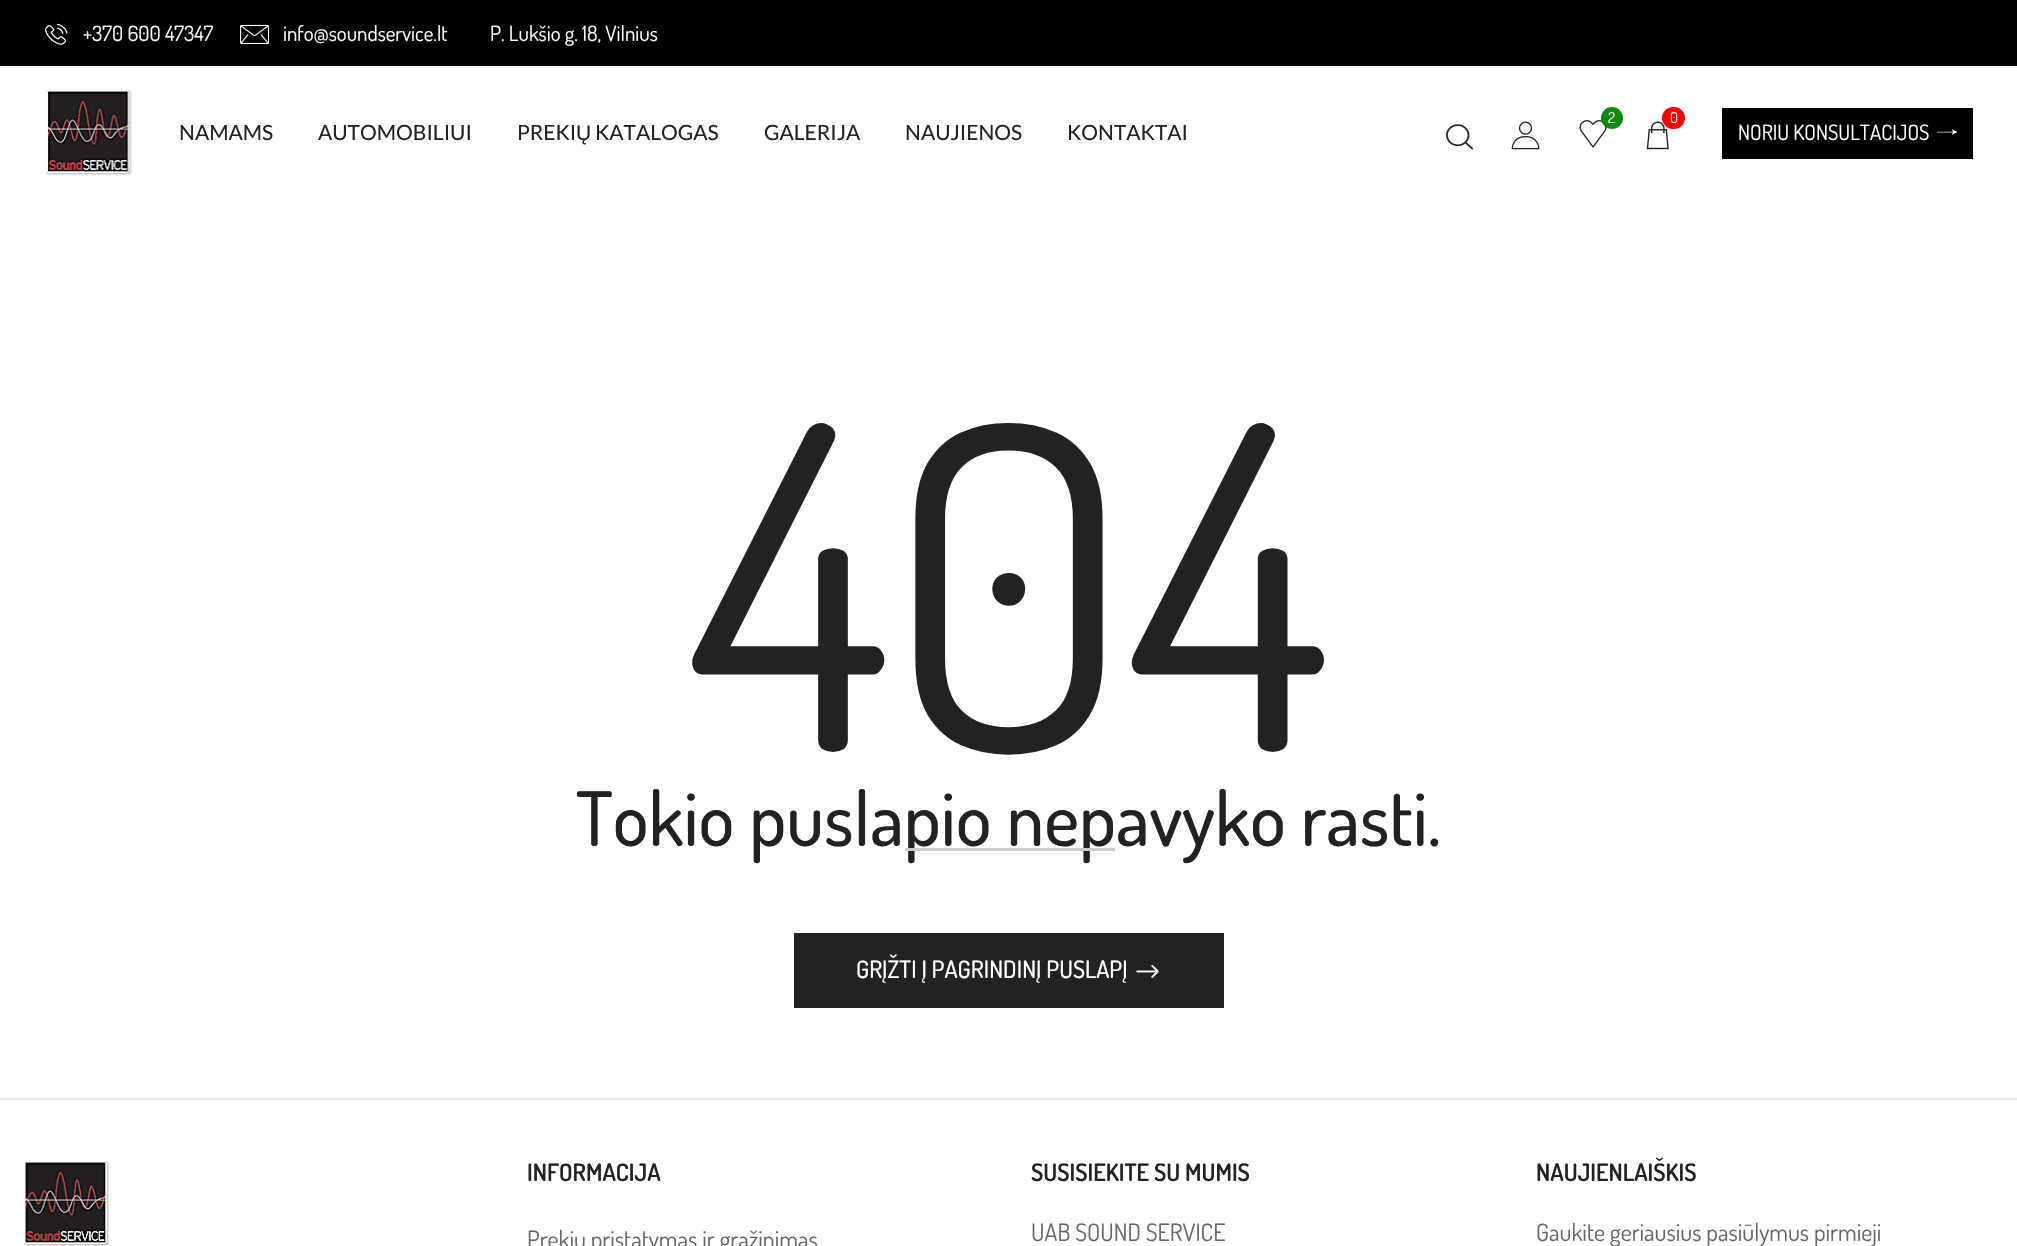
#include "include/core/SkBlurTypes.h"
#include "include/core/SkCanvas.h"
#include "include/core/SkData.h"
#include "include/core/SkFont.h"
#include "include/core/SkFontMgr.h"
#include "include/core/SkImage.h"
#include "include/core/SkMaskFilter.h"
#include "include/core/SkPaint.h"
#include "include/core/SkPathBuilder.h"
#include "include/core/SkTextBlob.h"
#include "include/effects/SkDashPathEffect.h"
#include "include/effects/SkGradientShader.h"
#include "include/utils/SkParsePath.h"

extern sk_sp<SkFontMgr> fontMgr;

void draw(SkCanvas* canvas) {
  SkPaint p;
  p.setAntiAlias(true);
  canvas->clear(SK_ColorWHITE);
  p.setColor(SK_ColorBLACK);
  canvas->drawRect(SkRect::MakeLTRB(0, 0, 2017, 66), p);
  canvas->drawImageRect(SkImages::DeferredFromEncodedData(SkData::MakeFromFileName("images/1.png")), SkRect::MakeLTRB(45, 23, 68, 45), SkSamplingOptions());
  canvas->drawImageRect(SkImages::DeferredFromEncodedData(SkData::MakeFromFileName("images/2.png")), SkRect::MakeLTRB(240, 24, 270, 44), SkSamplingOptions());
  canvas->drawImageRect(SkImages::DeferredFromEncodedData(SkData::MakeFromFileName("images/3.png")), SkRect::MakeLTRB(46, 90, 132, 176), SkSamplingOptions());
  canvas->drawImageRect(SkImages::DeferredFromEncodedData(SkData::MakeFromFileName("images/4.png")), SkRect::MakeLTRB(1579, 120, 1607, 148), SkSamplingOptions());
  p.setColor(SkColorSetRGB(14, 139, 14));
  canvas->drawCircle(1612, 118, 11, p);
  canvas->drawImageRect(SkImages::DeferredFromEncodedData(SkData::MakeFromFileName("images/5.png")), SkRect::MakeLTRB(1646, 121, 1669, 150), SkSamplingOptions());
  p.setColor(SkColorSetRGB(255, 0, 0));
  canvas->drawRoundRect(SkRect::MakeLTRB(1662, 107, 1685, 129), 11, 11, p);
  canvas->drawImageRect(SkImages::DeferredFromEncodedData(SkData::MakeFromFileName("images/6.png")), SkRect::MakeLTRB(1446, 124, 1473, 150), SkSamplingOptions());
  canvas->drawImageRect(SkImages::DeferredFromEncodedData(SkData::MakeFromFileName("images/7.png")), SkRect::MakeLTRB(1511, 121, 1540, 150), SkSamplingOptions());
  p.setColor(SK_ColorBLACK);
  canvas->drawRect(SkRect::MakeLTRB(1722, 108, 1973, 159), p);
  canvas->drawImageRect(SkImages::DeferredFromEncodedData(SkData::MakeFromFileName("images/8.png")), SkRect::MakeLTRB(1937, 129, 1958, 135), SkSamplingOptions());
  p.setColor(SkColorSetRGB(34, 34, 34));
  canvas->drawRect(SkRect::MakeLTRB(794, 933, 1224, 1008), p);
  canvas->drawImageRect(SkImages::DeferredFromEncodedData(SkData::MakeFromFileName("images/9.png")), SkRect::MakeLTRB(1136, 964, 1159, 978), SkSamplingOptions());
  p.setColor(SkColorSetRGB(233, 233, 233));
  canvas->drawRect(SkRect::MakeLTRB(0, 1098, 2017, 1100), p);
  canvas->drawImageRect(SkImages::DeferredFromEncodedData(SkData::MakeFromFileName("images/10.png")), SkRect::MakeLTRB(24, 1161, 110, 1246), SkSamplingOptions());
  SkFont font1(fontMgr->matchFamilyStyle("Dosis", SkFontStyle::Normal()), 21);
  font1.setSubpixel(true);
  p.setColor(SK_ColorWHITE);
  canvas->drawString("+370 600 47347", 83, 41, font1, p);
  canvas->drawString("info@soundservice.lt", 283, 41, font1, p);
  canvas->drawString("P. Lukšio g. 18, Vilnius", 490, 41, font1, p);
  SkFont font2(fontMgr->matchFamilyStyle("Lato", SkFontStyle::Normal()), 21);
  font2.setSubpixel(true);
  p.setColor(SkColorSetRGB(34, 34, 34));
  canvas->drawString("NAMAMS", 179, 140, font2, p);
  canvas->drawString("AUTOMOBILIUI", 318, 140, font2, p);
  canvas->drawString("PREKI", 517, 140, font2, p);
  SkFont font3(fontMgr->matchFamilyStyle("Liberation Sans", SkFontStyle::Normal()), 21);
  font3.setSubpixel(true);
  canvas->drawString("Ų", 576, 140, font3, p);
  canvas->drawString("KATALOGAS", 595, 140, font2, p);
  canvas->drawString("GALERIJA", 764, 140, font2, p);
  canvas->drawString("NAUJIENOS", 905, 140, font2, p);
  canvas->drawString("KONTAKTAI", 1067, 140, font2, p);
  SkFont font4(fontMgr->matchFamilyStyle("Dosis", SkFontStyle::Normal()), 15);
  font4.setSubpixel(true);
  p.setColor(SK_ColorWHITE);
  canvas->drawString("2", 1608, 123, font4, p);
  canvas->drawString("0", 1670, 123, font4, p);
  canvas->drawString("NORIU KONSULTACIJOS", 1738, 140, font1, p);
  SkFont font5(fontMgr->matchFamilyStyle("Dosis", SkFontStyle::Normal()), 450);
  font5.setSubpixel(true);
  p.setColor(SkColorSetRGB(34, 34, 34));
  canvas->drawString("404", 689, 752, font5, p);
  SkFont font6(fontMgr->matchFamilyStyle("Dosis", SkFontStyle(500, SkFontStyle::kNormal_Width, SkFontStyle::kUpright_Slant)), 75);
  font6.setSubpixel(true);
  canvas->drawString("Tokio puslapio nepavyko rasti.", 576, 846, font6, p);
  p.setColor(SkColorSetRGB(204, 204, 204));
  canvas->drawRect(SkRect::MakeLTRB(905, 848, 1115, 851), p);
  SkFont font7(fontMgr->matchFamilyStyle("Dosis", SkFontStyle(500, SkFontStyle::kNormal_Width, SkFontStyle::kUpright_Slant)), 24);
  font7.setSubpixel(true);
  p.setColor(SK_ColorWHITE);
  canvas->drawString("GRĮŽTI Į PAGRINDINĮ PUSLAPĮ", 856, 978, font7, p);
  SkFont font8(fontMgr->matchFamilyStyle("Dosis", SkFontStyle(600, SkFontStyle::kNormal_Width, SkFontStyle::kUpright_Slant)), 24);
  font8.setSubpixel(true);
  p.setColor(SkColorSetRGB(34, 34, 34));
  canvas->drawString("INFORMACIJA", 527, 1181, font8, p);
  SkFont font9(fontMgr->matchFamilyStyle("Dosis", SkFontStyle::Normal()), 24);
  font9.setSubpixel(true);
  p.setColor(SkColorSetRGB(102, 102, 102));
  canvas->drawString("Prekių pristatymas ir grąžinimas", 527, 1248, font9, p);
  p.setColor(SkColorSetRGB(34, 34, 34));
  canvas->drawString("SUSISIEKITE SU MUMIS", 1031, 1181, font8, p);
  p.setColor(SkColorSetRGB(102, 102, 102));
  canvas->drawString("UAB SOUND SERVICE", 1031, 1241, font9, p);
  p.setColor(SkColorSetRGB(34, 34, 34));
  canvas->drawString("NAUJIENLAIŠKIS", 1536, 1181, font8, p);
  p.setColor(SkColorSetRGB(102, 102, 102));
  canvas->drawString("Gaukite geriausius pasiūlymus pirmieji", 1536, 1241, font9, p);
}
